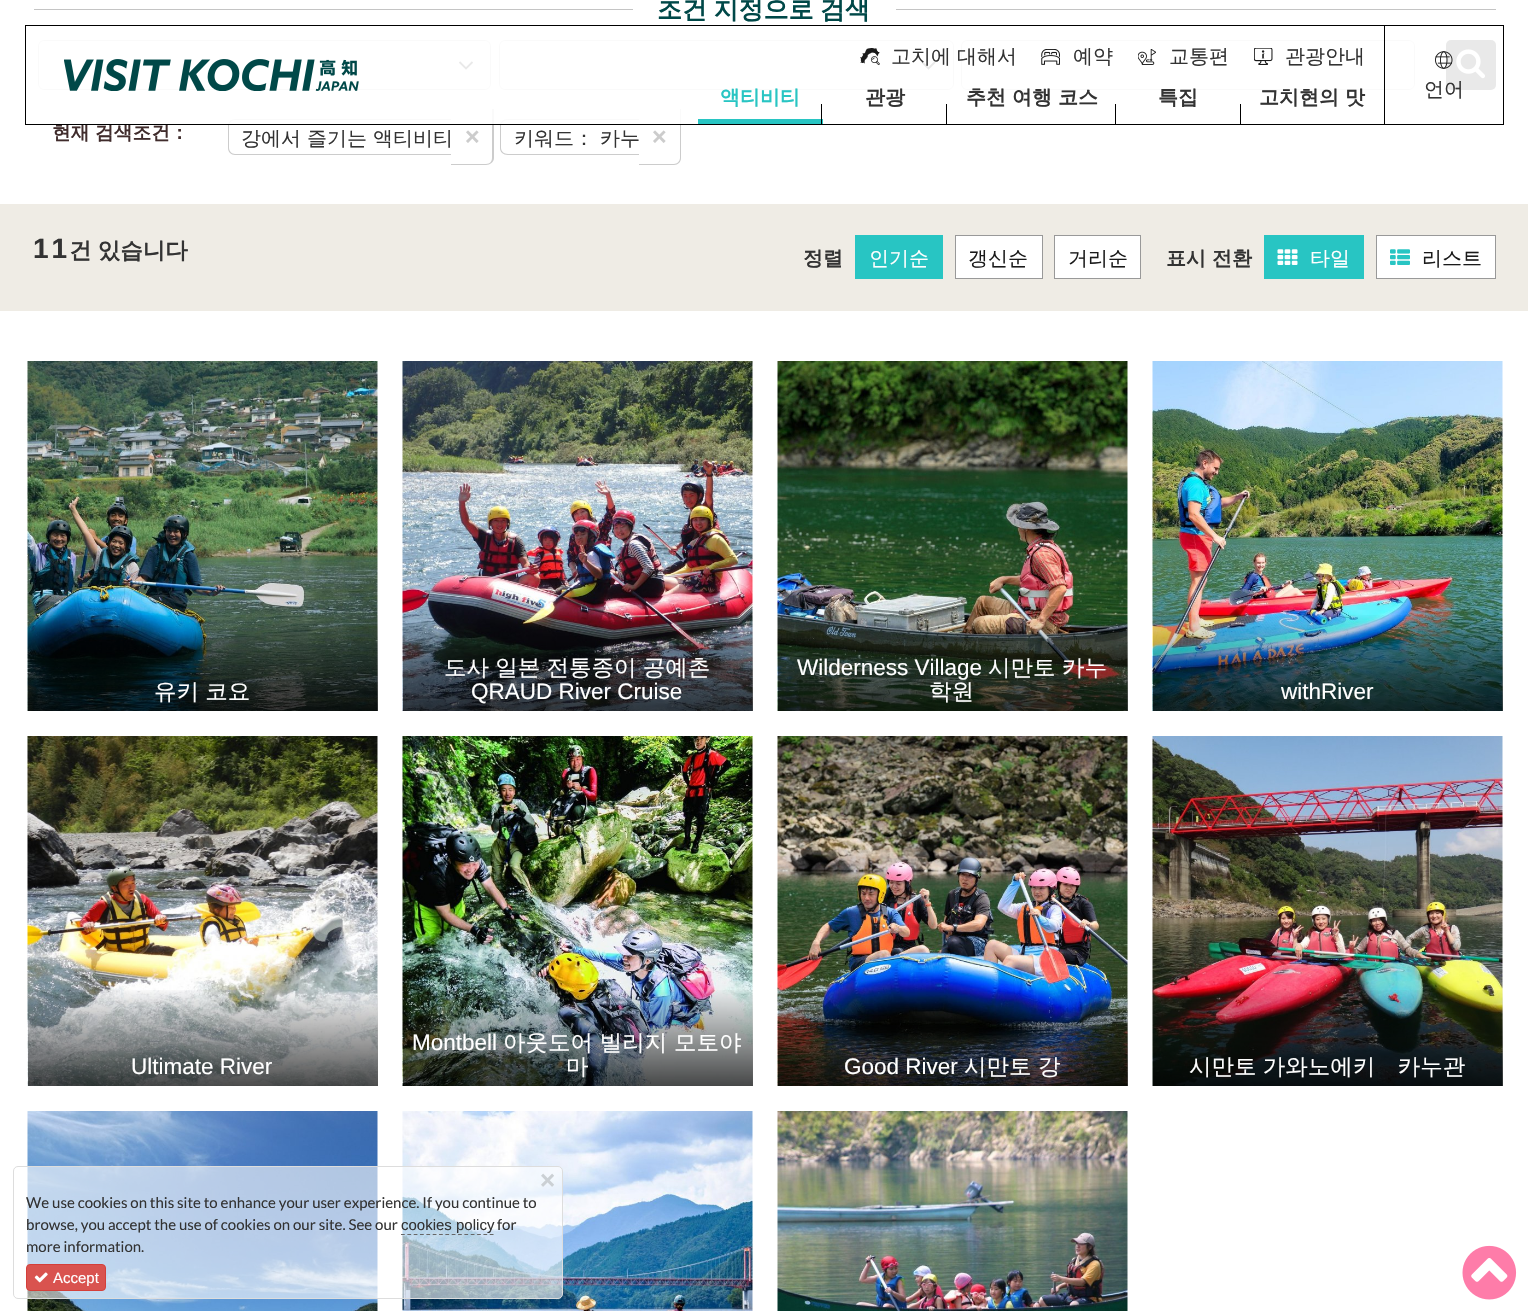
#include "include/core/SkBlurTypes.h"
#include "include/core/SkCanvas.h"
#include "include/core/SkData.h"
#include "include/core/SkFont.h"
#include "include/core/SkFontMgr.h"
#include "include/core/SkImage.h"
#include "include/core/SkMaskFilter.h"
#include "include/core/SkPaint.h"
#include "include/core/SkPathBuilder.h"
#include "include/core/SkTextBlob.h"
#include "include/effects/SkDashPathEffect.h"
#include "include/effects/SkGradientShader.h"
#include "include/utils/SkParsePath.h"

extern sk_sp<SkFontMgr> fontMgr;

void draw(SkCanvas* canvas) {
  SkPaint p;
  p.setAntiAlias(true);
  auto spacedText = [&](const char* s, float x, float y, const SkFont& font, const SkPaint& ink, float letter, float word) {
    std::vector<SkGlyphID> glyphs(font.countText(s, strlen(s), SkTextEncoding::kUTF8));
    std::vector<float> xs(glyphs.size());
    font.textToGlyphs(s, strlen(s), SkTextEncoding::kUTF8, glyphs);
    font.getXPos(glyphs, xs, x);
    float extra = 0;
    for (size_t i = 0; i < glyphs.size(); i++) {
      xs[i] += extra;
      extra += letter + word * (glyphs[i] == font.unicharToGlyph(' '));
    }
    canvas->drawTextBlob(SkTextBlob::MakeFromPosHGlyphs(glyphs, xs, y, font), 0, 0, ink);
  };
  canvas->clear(SK_ColorWHITE);
  p.setColor(SkColorSetRGB(196, 196, 196));
  canvas->drawRect(SkRect::MakeLTRB(34, 9, 1496, 10), p);
  p.setColor(SK_ColorWHITE);
  canvas->drawRect(SkRect::MakeLTRB(633, 9, 896, 10), p);
  p.setStyle(SkPaint::kStroke_Style);
  p.setStrokeWidth(1);
  p.setColor(SkColorSetRGB(204, 204, 204));
  canvas->drawRoundRect(SkRect::MakeLTRB(38.5f, 40.5f, 490.5f, 89.5f), 5.5f, 5.5f, p);
  p.setStrokeWidth(1.9f);
  p.setColor(SkColorSetRGB(26, 26, 26));
  canvas->drawPath(SkPathBuilder().moveTo(472.5f, 62).lineTo(466, 68.5f).lineTo(459.5f, 62).detach(), p);
  p.setStrokeWidth(1);
  p.setColor(SkColorSetRGB(204, 204, 204));
  canvas->drawRoundRect(SkRect::MakeLTRB(499.5f, 40.5f, 953.5f, 89.5f), 5.5f, 5.5f, p);
  p.setStrokeWidth(1.9f);
  p.setColor(SkColorSetRGB(26, 26, 26));
  canvas->drawPath(SkPathBuilder().moveTo(935, 62).lineTo(928.5f, 68.5f).lineTo(922, 62).detach(), p);
  p.setStrokeWidth(1);
  p.setColor(SkColorSetRGB(204, 204, 204));
  canvas->drawRoundRect(SkRect::MakeLTRB(961.5f, 40.5f, 1414.5f, 89.5f), 5.5f, 5.5f, p);
  p.setStyle(SkPaint::kFill_Style);
  p.setColor(SkColorSetRGB(26, 26, 26));
  canvas->drawRoundRect(SkRect::MakeLTRB(1446, 40, 1496, 90), 5, 5, p);
  canvas->drawImageRect(SkImages::DeferredFromEncodedData(SkData::MakeFromFileName("images/1.png")), SkRect::MakeLTRB(1456, 49, 1485, 79), SkSamplingOptions());
  p.setColor(SkColorSetRGB(204, 204, 204));
  canvas->drawPath(SkPathBuilder(SkPathFillType::kEvenOdd).moveTo(235, 119).lineTo(451, 119).lineTo(451, 155).lineTo(235, 155).cubicTo(231, 155, 228, 152, 228, 148).lineTo(228, 126).cubicTo(228, 122, 231, 119, 235, 119).close().moveTo(235, 120).lineTo(451, 120).lineTo(451, 154).lineTo(235, 154).cubicTo(232, 154, 229, 151, 229, 148).lineTo(229, 126).cubicTo(229, 123, 232, 120, 235, 120).close().detach(), p);
  canvas->save();
  canvas->clipRect(SkRect::MakeLTRB(40, 109, 1490, 204));
  canvas->drawPath(SkPathBuilder(SkPathFillType::kEvenOdd).moveTo(451, 100).lineTo(486, 100).cubicTo(490, 100, 494, 103, 494, 108).lineTo(494, 158).cubicTo(494, 162, 490, 165, 486, 165).lineTo(451, 165).close().moveTo(451, 101).lineTo(486, 101).cubicTo(490, 101, 492, 104, 492, 108).lineTo(492, 158).cubicTo(492, 161, 490, 164, 486, 164).lineTo(451, 164).close().detach(), p);
  canvas->restore();
  canvas->drawPath(SkPathBuilder(SkPathFillType::kEvenOdd).moveTo(508, 119).lineTo(639, 119).lineTo(639, 155).lineTo(508, 155).cubicTo(503, 155, 500, 152, 500, 148).lineTo(500, 126).cubicTo(500, 122, 503, 119, 508, 119).close().moveTo(508, 120).lineTo(639, 120).lineTo(639, 154).lineTo(508, 154).cubicTo(504, 154, 501, 151, 501, 148).lineTo(501, 126).cubicTo(501, 123, 504, 120, 508, 120).close().detach(), p);
  canvas->save();
  canvas->clipRect(SkRect::MakeLTRB(40, 109, 1490, 204));
  canvas->drawPath(SkPathBuilder(SkPathFillType::kEvenOdd).moveTo(639, 100).lineTo(674, 100).cubicTo(678, 100, 681, 103, 681, 108).lineTo(681, 158).cubicTo(681, 162, 678, 165, 674, 165).lineTo(639, 165).close().moveTo(639, 101).lineTo(674, 101).cubicTo(677, 101, 680, 104, 680, 108).lineTo(680, 158).cubicTo(680, 161, 677, 164, 674, 164).lineTo(639, 164).close().detach(), p);
  canvas->restore();
  p.setColor(SkColorSetRGB(239, 236, 229));
  canvas->drawRect(SkRect::MakeLTRB(0, 204, 1528, 311), p);
  p.setColor(SkColorSetRGB(40, 197, 195));
  canvas->drawRect(SkRect::MakeLTRB(855, 235, 943, 279), p);
  p.setColor(SK_ColorWHITE);
  canvas->drawRect(SkRect::MakeLTRB(955.5f, 235.5f, 1042.5f, 278.5f), p);
  p.setStyle(SkPaint::kStroke_Style);
  p.setColor(SkColorSetRGB(153, 153, 153));
  canvas->drawRect(SkRect::MakeLTRB(955.5f, 235.5f, 1042.5f, 278.5f), p);
  p.setStyle(SkPaint::kFill_Style);
  p.setColor(SK_ColorWHITE);
  canvas->drawRect(SkRect::MakeLTRB(1054.5f, 235.5f, 1140.5f, 278.5f), p);
  p.setStyle(SkPaint::kStroke_Style);
  p.setColor(SkColorSetRGB(153, 153, 153));
  canvas->drawRect(SkRect::MakeLTRB(1054.5f, 235.5f, 1140.5f, 278.5f), p);
  p.setStyle(SkPaint::kFill_Style);
  p.setColor(SkColorSetRGB(40, 197, 195));
  canvas->drawRect(SkRect::MakeLTRB(1264, 235, 1364, 279), p);
  canvas->drawImageRect(SkImages::DeferredFromEncodedData(SkData::MakeFromFileName("images/2.png")), SkRect::MakeLTRB(1277, 249, 1298, 265), SkSamplingOptions());
  p.setColor(SK_ColorWHITE);
  canvas->drawRect(SkRect::MakeLTRB(1376.5f, 235.5f, 1495.5f, 278.5f), p);
  p.setStyle(SkPaint::kStroke_Style);
  p.setColor(SkColorSetRGB(153, 153, 153));
  canvas->drawRect(SkRect::MakeLTRB(1376.5f, 235.5f, 1495.5f, 278.5f), p);
  canvas->drawImageRect(SkImages::DeferredFromEncodedData(SkData::MakeFromFileName("images/3.png")), SkRect::MakeLTRB(1390, 249, 1410, 265), SkSamplingOptions());
  canvas->drawImageRect(SkImages::DeferredFromEncodedData(SkData::MakeFromFileName("images/4.png")), SkRect::MakeLTRB(27, 361, 378, 711), SkSamplingOptions());
  p.setStyle(SkPaint::kFill_Style);
  {
    const SkColor colors[] = {SkColorSetARGB(0, 0, 0, 0), SkColorSetARGB(0, 0, 0, 0), SkColorSetARGB(179, 0, 0, 0)};
    const float stops[] = {0, 0.01f, 1};
    const SkPoint ends[] = {{203, 611}, {203, 711}};
    p.setShader(SkGradientShader::MakeLinear(ends, colors, stops, 3, SkTileMode::kClamp));
    p.setAlpha(255);
  }
  canvas->drawRect(SkRect::MakeLTRB(28, 615, 378, 711), p);
  canvas->drawImageRect(SkImages::DeferredFromEncodedData(SkData::MakeFromFileName("images/5.png")), SkRect::MakeLTRB(402, 361, 753, 711), SkSamplingOptions());
  {
    const SkColor colors[] = {SkColorSetARGB(0, 0, 0, 0), SkColorSetARGB(0, 0, 0, 0), SkColorSetARGB(179, 0, 0, 0)};
    const float stops[] = {0, 0.01f, 1};
    const SkPoint ends[] = {{578, 611}, {578, 711}};
    p.setShader(SkGradientShader::MakeLinear(ends, colors, stops, 3, SkTileMode::kClamp));
    p.setAlpha(255);
  }
  canvas->drawRect(SkRect::MakeLTRB(403, 615, 753, 711), p);
  canvas->drawImageRect(SkImages::DeferredFromEncodedData(SkData::MakeFromFileName("images/6.png")), SkRect::MakeLTRB(777, 361, 1128, 711), SkSamplingOptions());
  {
    const SkColor colors[] = {SkColorSetARGB(0, 0, 0, 0), SkColorSetARGB(0, 0, 0, 0), SkColorSetARGB(179, 0, 0, 0)};
    const float stops[] = {0, 0.01f, 1};
    const SkPoint ends[] = {{953, 611}, {953, 711}};
    p.setShader(SkGradientShader::MakeLinear(ends, colors, stops, 3, SkTileMode::kClamp));
    p.setAlpha(255);
  }
  canvas->drawRect(SkRect::MakeLTRB(778, 615, 1128, 711), p);
  canvas->drawImageRect(SkImages::DeferredFromEncodedData(SkData::MakeFromFileName("images/7.png")), SkRect::MakeLTRB(1152, 361, 1503, 711), SkSamplingOptions());
  {
    const SkColor colors[] = {SkColorSetARGB(0, 0, 0, 0), SkColorSetARGB(0, 0, 0, 0), SkColorSetARGB(179, 0, 0, 0)};
    const float stops[] = {0, 0.01f, 1};
    const SkPoint ends[] = {{1328, 611}, {1328, 711}};
    p.setShader(SkGradientShader::MakeLinear(ends, colors, stops, 3, SkTileMode::kClamp));
    p.setAlpha(255);
  }
  canvas->drawRect(SkRect::MakeLTRB(1153, 615, 1503, 711), p);
  canvas->drawImageRect(SkImages::DeferredFromEncodedData(SkData::MakeFromFileName("images/8.png")), SkRect::MakeLTRB(27, 736, 378, 1086), SkSamplingOptions());
  {
    const SkColor colors[] = {SkColorSetARGB(0, 0, 0, 0), SkColorSetARGB(0, 0, 0, 0), SkColorSetARGB(179, 0, 0, 0)};
    const float stops[] = {0, 0.01f, 1};
    const SkPoint ends[] = {{203, 986}, {203, 1086}};
    p.setShader(SkGradientShader::MakeLinear(ends, colors, stops, 3, SkTileMode::kClamp));
    p.setAlpha(255);
  }
  canvas->drawRect(SkRect::MakeLTRB(28, 990, 378, 1086), p);
  canvas->drawImageRect(SkImages::DeferredFromEncodedData(SkData::MakeFromFileName("images/9.png")), SkRect::MakeLTRB(402, 736, 753, 1086), SkSamplingOptions());
  {
    const SkColor colors[] = {SkColorSetARGB(0, 0, 0, 0), SkColorSetARGB(0, 0, 0, 0), SkColorSetARGB(179, 0, 0, 0)};
    const float stops[] = {0, 0.01f, 1};
    const SkPoint ends[] = {{578, 986}, {578, 1086}};
    p.setShader(SkGradientShader::MakeLinear(ends, colors, stops, 3, SkTileMode::kClamp));
    p.setAlpha(255);
  }
  canvas->drawRect(SkRect::MakeLTRB(403, 990, 753, 1086), p);
  canvas->drawImageRect(SkImages::DeferredFromEncodedData(SkData::MakeFromFileName("images/10.png")), SkRect::MakeLTRB(777, 736, 1128, 1086), SkSamplingOptions());
  {
    const SkColor colors[] = {SkColorSetARGB(0, 0, 0, 0), SkColorSetARGB(0, 0, 0, 0), SkColorSetARGB(179, 0, 0, 0)};
    const float stops[] = {0, 0.01f, 1};
    const SkPoint ends[] = {{953, 986}, {953, 1086}};
    p.setShader(SkGradientShader::MakeLinear(ends, colors, stops, 3, SkTileMode::kClamp));
    p.setAlpha(255);
  }
  canvas->drawRect(SkRect::MakeLTRB(778, 990, 1128, 1086), p);
  canvas->drawImageRect(SkImages::DeferredFromEncodedData(SkData::MakeFromFileName("images/11.png")), SkRect::MakeLTRB(1152, 736, 1503, 1086), SkSamplingOptions());
  {
    const SkColor colors[] = {SkColorSetARGB(0, 0, 0, 0), SkColorSetARGB(0, 0, 0, 0), SkColorSetARGB(179, 0, 0, 0)};
    const float stops[] = {0, 0.01f, 1};
    const SkPoint ends[] = {{1328, 986}, {1328, 1086}};
    p.setShader(SkGradientShader::MakeLinear(ends, colors, stops, 3, SkTileMode::kClamp));
    p.setAlpha(255);
  }
  canvas->drawRect(SkRect::MakeLTRB(1153, 990, 1503, 1086), p);
  canvas->drawImageRect(SkImages::DeferredFromEncodedData(SkData::MakeFromFileName("images/12.png")), SkRect::MakeLTRB(27, 1111, 378, 1311), SkSamplingOptions());
  canvas->drawImageRect(SkImages::DeferredFromEncodedData(SkData::MakeFromFileName("images/13.png")), SkRect::MakeLTRB(402, 1111, 753, 1311), SkSamplingOptions());
  canvas->drawImageRect(SkImages::DeferredFromEncodedData(SkData::MakeFromFileName("images/14.png")), SkRect::MakeLTRB(777, 1111, 1128, 1311), SkSamplingOptions());
  p.setShader(nullptr);
  p.setColor(SkColorSetARGB(230, 255, 255, 255));
  canvas->drawRect(SkRect::MakeLTRB(38, 40, 1496, 124), p);
  p.setColor(SkColorSetARGB(153, 255, 255, 255));
  canvas->drawRoundRect(SkRect::MakeLTRB(13.5f, 1166.5f, 562.5f, 1298.5f), 4.5f, 4.5f, p);
  p.setStyle(SkPaint::kStroke_Style);
  p.setColor(SkColorSetRGB(221, 221, 221));
  canvas->drawRoundRect(SkRect::MakeLTRB(13.5f, 1166.5f, 562.5f, 1298.5f), 4.5f, 4.5f, p);
  p.setStrokeWidth(1.2f);
  p.setColor(SkColorSetRGB(102, 102, 102));
  p.setPathEffect(SkDashPathEffect::Make({{3.75f, 2.59f}}, 0));
  canvas->drawPath(SkPathBuilder().moveTo(401, 1234.5f).lineTo(494, 1234.5f).detach(), p);
  p.setPathEffect(nullptr);
  p.setStyle(SkPaint::kFill_Style);
  p.setColor(SkColorSetRGB(217, 83, 79));
  canvas->drawRoundRect(SkRect::MakeLTRB(26.5f, 1264.5f, 105.5f, 1290.5f), 3.5f, 3.5f, p);
  p.setStyle(SkPaint::kStroke_Style);
  p.setStrokeWidth(1);
  p.setColor(SkColorSetRGB(212, 63, 58));
  canvas->drawRoundRect(SkRect::MakeLTRB(26.5f, 1264.5f, 105.5f, 1290.5f), 3.5f, 3.5f, p);
  canvas->drawImageRect(SkImages::DeferredFromEncodedData(SkData::MakeFromFileName("images/21.png")), SkRect::MakeLTRB(34, 1272, 48, 1283), SkSamplingOptions());
  canvas->drawImageRect(SkImages::DeferredFromEncodedData(SkData::MakeFromFileName("images/22.png")), SkRect::MakeLTRB(1462, 1245, 1517, 1300), SkSamplingOptions());
  SkFont font1(fontMgr->matchFamilyStyle("WenQuanYi Zen Hei", SkFontStyle::Bold()), 25);
  font1.setSubpixel(true);
  p.setStyle(SkPaint::kFill_Style);
  p.setColor(SkColorSetRGB(0, 72, 72));
  spacedText("조건 지정으로 검색", 657, 18, font1, p, 0, -1);
  SkFont font2(fontMgr->matchFamilyStyle("WenQuanYi Zen Hei", SkFontStyle::Bold()), 18.75f);
  font2.setSubpixel(true);
  p.setColor(SkColorSetRGB(64, 44, 44));
  canvas->drawString("현재 검색조건：", 52, 139, font2, p);
  SkFont font3(fontMgr->matchFamilyStyle("WenQuanYi Zen Hei", SkFontStyle(500, SkFontStyle::kNormal_Width, SkFontStyle::kUpright_Slant)), 20);
  font3.setSubpixel(true);
  p.setColor(SkColorSetRGB(51, 51, 51));
  canvas->drawString("강에서 즐기는 액티비티", 241, 145, font3, p);
  SkFont font4(fontMgr->matchFamilyStyle("Liberation Sans", SkFontStyle::Bold()), 25);
  font4.setSubpixel(true);
  p.setColor(SkColorSetRGB(204, 204, 204));
  canvas->drawString("×", 465, 145, font4, p);
  p.setColor(SkColorSetRGB(51, 51, 51));
  canvas->drawString("키워드： 카누", 514, 145, font3, p);
  p.setColor(SkColorSetRGB(204, 204, 204));
  canvas->drawString("×", 652, 145, font4, p);
  SkFont font5(fontMgr->matchFamilyStyle("Liberation Sans", SkFontStyle::Bold()), 28);
  font5.setSubpixel(true);
  p.setColor(SkColorSetRGB(51, 51, 51));
  spacedText("11", 33, 258, font5, p, 3, 0);
  SkFont font6(fontMgr->matchFamilyStyle("WenQuanYi Zen Hei", SkFontStyle::Bold()), 22.5f);
  font6.setSubpixel(true);
  spacedText("건 있습니다", 69, 258, font6, p, 0, -0.5f);
  SkFont font7(fontMgr->matchFamilyStyle("WenQuanYi Zen Hei", SkFontStyle::Bold()), 20);
  font7.setSubpixel(true);
  canvas->drawString("정렬", 803, 265, font7, p);
  p.setColor(SK_ColorWHITE);
  canvas->drawString("인기순", 869, 265, font3, p);
  p.setColor(SkColorSetRGB(26, 26, 26));
  canvas->drawString("갱신순", 968, 265, font3, p);
  canvas->drawString("거리순", 1068, 265, font3, p);
  p.setColor(SkColorSetRGB(51, 51, 51));
  canvas->drawString("표시 전환", 1166, 265, font7, p);
  p.setColor(SK_ColorWHITE);
  canvas->drawString("타일", 1310, 265, font3, p);
  p.setColor(SkColorSetRGB(26, 26, 26));
  canvas->drawString("리스트", 1422, 265, font3, p);
  SkFont font8(fontMgr->matchFamilyStyle("WenQuanYi Zen Hei", SkFontStyle(500, SkFontStyle::kNormal_Width, SkFontStyle::kUpright_Slant)), 22.5f);
  font8.setSubpixel(true);
  p.setColor(SK_ColorWHITE);
  spacedText("유키 코요", 154, 699, font8, p, 0, -0.5f);
  spacedText("도사 일본 전통종이 공예촌", 444, 675, font8, p, 0, -0.5f);
  SkFont font9(fontMgr->matchFamilyStyle("Liberation Sans", SkFontStyle::Normal()), 22.5f);
  font9.setSubpixel(true);
  canvas->drawString("QRAUD River Cruise", 471, 699, font9, p);
  canvas->drawString("Wilderness Village", 797, 675, font9, p);
  canvas->drawString("시만토", 988, 675, font8, p);
  canvas->drawString("카누", 1062, 675, font8, p);
  canvas->drawString("학원", 929, 699, font8, p);
  canvas->drawString("withRiver", 1281, 699, font9, p);
  canvas->drawString("Ultimate River", 131, 1074, font9, p);
  canvas->drawString("Montbell", 412, 1050, font9, p);
  canvas->drawString("아웃도어 빌리지 모토야", 503, 1050, font8, p);
  canvas->drawString("마", 566, 1074, font8, p);
  canvas->drawString("Good River", 844, 1074, font9, p);
  canvas->drawString("시만토", 964, 1074, font8, p);
  canvas->drawString("강", 1038, 1074, font8, p);
  spacedText("시만토 가와노에키　카누관", 1189, 1074, font8, p, 0, -0.5f);
  p.setStyle(SkPaint::kStroke_Style);
  p.setColor(SK_ColorBLACK);
  canvas->drawRect(SkRect::MakeLTRB(25.5f, 25.5f, 1503.5f, 124.5f), p);
  canvas->drawImageRect(SkImages::DeferredFromEncodedData(SkData::MakeFromFileName("images/15.png")), SkRect::MakeLTRB(64, 59, 359, 91), SkSamplingOptions());
  canvas->drawImageRect(SkImages::DeferredFromEncodedData(SkData::MakeFromFileName("images/16.png")), SkRect::MakeLTRB(860, 48, 880, 65), SkSamplingOptions());
  p.setStyle(SkPaint::kFill_Style);
  p.setColor(SkColorSetRGB(51, 51, 51));
  canvas->drawString("고치에 대해서", 891, 63, font3, p);
  canvas->drawImageRect(SkImages::DeferredFromEncodedData(SkData::MakeFromFileName("images/17.png")), SkRect::MakeLTRB(1041, 49, 1060, 65), SkSamplingOptions());
  canvas->drawString("예약", 1073, 63, font3, p);
  canvas->drawImageRect(SkImages::DeferredFromEncodedData(SkData::MakeFromFileName("images/18.png")), SkRect::MakeLTRB(1138, 49, 1156, 65), SkSamplingOptions());
  canvas->drawString("교통편", 1169, 63, font3, p);
  canvas->drawImageRect(SkImages::DeferredFromEncodedData(SkData::MakeFromFileName("images/19.png")), SkRect::MakeLTRB(1254, 48, 1273, 65), SkSamplingOptions());
  canvas->drawString("관광안내", 1285, 63, font3, p);
  p.setColor(SkColorSetRGB(40, 197, 195));
  canvas->drawRect(SkRect::MakeLTRB(698, 119, 823, 124), p);
  canvas->drawString("액티비티", 720, 104, font7, p);
  p.setColor(SK_ColorBLACK);
  canvas->drawRect(SkRect::MakeLTRB(821, 104, 822, 124), p);
  p.setColor(SkColorSetRGB(51, 51, 51));
  canvas->drawString("관광", 865, 104, font7, p);
  p.setColor(SK_ColorBLACK);
  canvas->drawRect(SkRect::MakeLTRB(946, 104, 947, 124), p);
  p.setColor(SkColorSetRGB(51, 51, 51));
  canvas->drawString("추천 여행 코스", 966, 104, font7, p);
  p.setColor(SK_ColorBLACK);
  canvas->drawRect(SkRect::MakeLTRB(1115, 104, 1116, 124), p);
  p.setColor(SkColorSetRGB(51, 51, 51));
  canvas->drawString("특집", 1158, 104, font7, p);
  p.setColor(SK_ColorBLACK);
  canvas->drawRect(SkRect::MakeLTRB(1240, 104, 1241, 124), p);
  p.setColor(SkColorSetRGB(51, 51, 51));
  canvas->drawString("고치현의 맛", 1259, 104, font7, p);
  p.setColor(SK_ColorBLACK);
  canvas->drawRect(SkRect::MakeLTRB(1384, 26, 1385, 124), p);
  canvas->drawImageRect(SkImages::DeferredFromEncodedData(SkData::MakeFromFileName("images/20.png")), SkRect::MakeLTRB(1435, 51, 1453, 69), SkSamplingOptions());
  p.setColor(SkColorSetRGB(51, 51, 51));
  canvas->drawString("언어", 1424, 96, font3, p);
  SkFont font10(fontMgr->matchFamilyStyle("Liberation Sans", SkFontStyle::Bold()), 26);
  font10.setSubpixel(true);
  p.setColor(SkColorSetRGB(203, 208, 212));
  canvas->drawString("×", 540, 1189, font10, p);
  SkFont font11(fontMgr->matchFamilyStyle("Lato", SkFontStyle::Normal()), 15);
  font11.setSubpixel(true);
  p.setColor(SkColorSetRGB(51, 51, 51));
  canvas->drawString("We use cookies on this site to enhance your user experience. If you continue to", 26, 1208, font11, p);
  canvas->drawString("browse, you accept the use of cookies on our site. See our", 26, 1230, font11, p);
  SkFont font12(fontMgr->matchFamilyStyle("Liberation Sans", SkFontStyle::Normal()), 15);
  font12.setSubpixel(true);
  canvas->drawString("cookies policy", 401, 1230, font12, p);
  canvas->drawString("for", 497, 1230, font11, p);
  canvas->drawString("more information.", 26, 1252, font11, p);
  p.setColor(SK_ColorWHITE);
  canvas->drawString("Accept", 53, 1283, font12, p);
}
